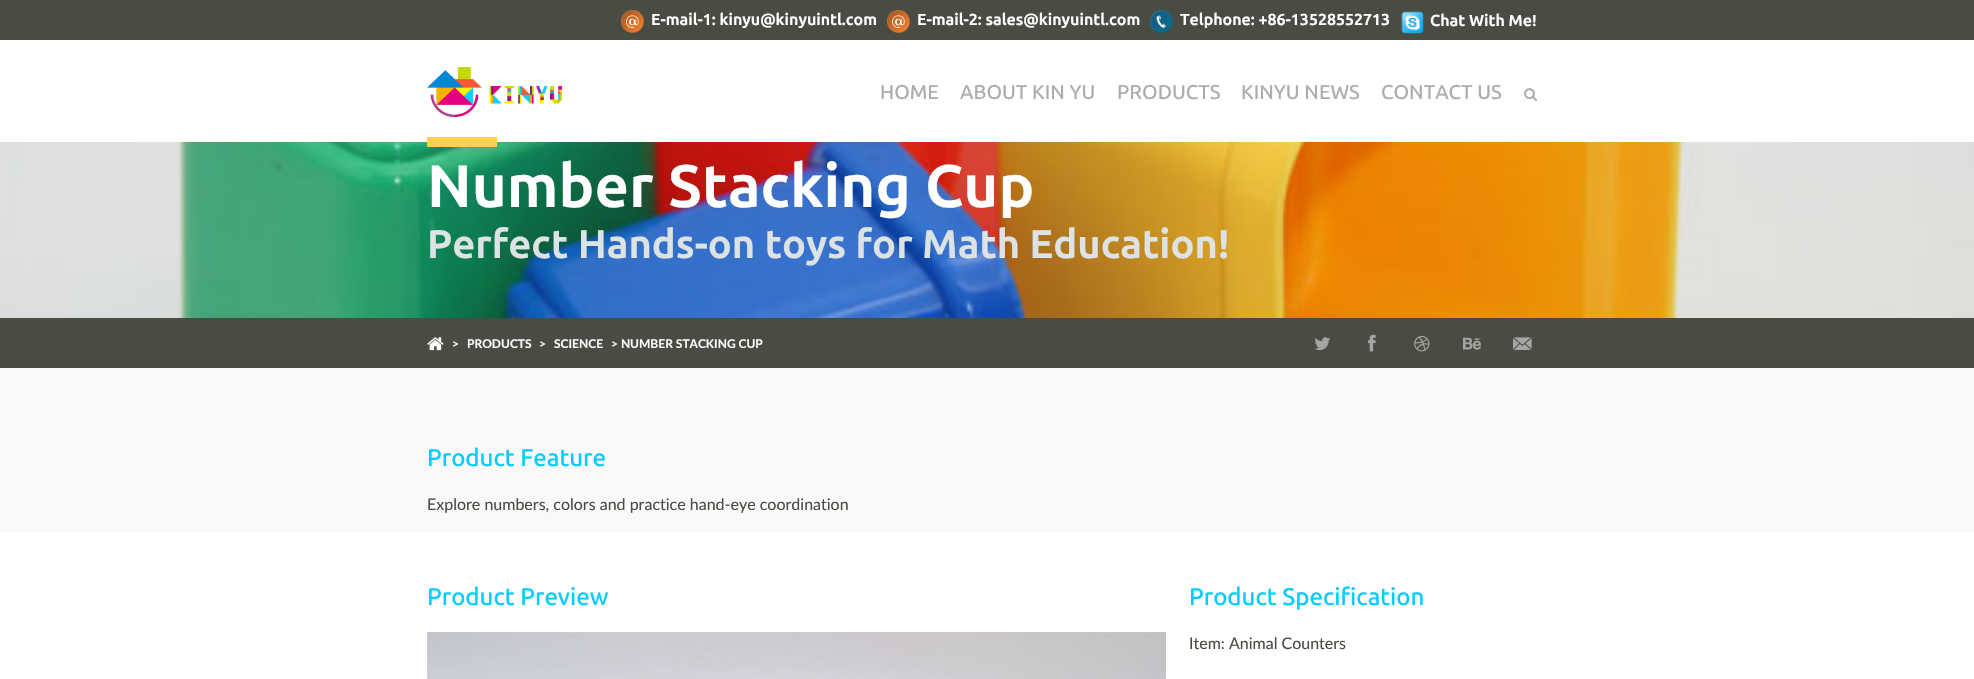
#include "include/core/SkBlurTypes.h"
#include "include/core/SkCanvas.h"
#include "include/core/SkData.h"
#include "include/core/SkFont.h"
#include "include/core/SkFontMgr.h"
#include "include/core/SkImage.h"
#include "include/core/SkMaskFilter.h"
#include "include/core/SkPaint.h"
#include "include/core/SkPathBuilder.h"
#include "include/core/SkTextBlob.h"
#include "include/effects/SkDashPathEffect.h"
#include "include/effects/SkGradientShader.h"
#include "include/utils/SkParsePath.h"

extern sk_sp<SkFontMgr> fontMgr;

void draw(SkCanvas* canvas) {
  SkPaint p;
  p.setAntiAlias(true);
  canvas->clear(SK_ColorWHITE);
  p.setColor(SkColorSetRGB(73, 76, 67));
  canvas->drawRect(SkRect::MakeLTRB(0, 0, 1974, 40), p);
  canvas->drawImageRect(SkImages::DeferredFromEncodedData(SkData::MakeFromFileName("images/1.png")), SkRect::MakeLTRB(621, 10, 644, 33), SkSamplingOptions());
  canvas->drawImageRect(SkImages::DeferredFromEncodedData(SkData::MakeFromFileName("images/1.png")), SkRect::MakeLTRB(887, 10, 910, 33), SkSamplingOptions());
  canvas->drawImageRect(SkImages::DeferredFromEncodedData(SkData::MakeFromFileName("images/2.png")), SkRect::MakeLTRB(1150, 10, 1173, 33), SkSamplingOptions());
  canvas->drawImageRect(SkImages::DeferredFromEncodedData(SkData::MakeFromFileName("images/3.png")), SkRect::MakeLTRB(1401, 11, 1424, 34), SkSamplingOptions());
  canvas->drawImageRect(SkImages::DeferredFromEncodedData(SkData::MakeFromFileName("images/4.png")), SkRect::MakeLTRB(427, 67, 562, 117), SkSamplingOptions());
  canvas->drawImageRect(SkImages::DeferredFromEncodedData(SkData::MakeFromFileName("images/5.png")), SkRect::MakeLTRB(1524, 88, 1537, 101), SkSamplingOptions());
  canvas->drawImageRect(SkImages::DeferredFromEncodedData(SkData::MakeFromFileName("images/6.png")), SkRect::MakeLTRB(0, 142, 1974, 318), SkSamplingOptions());
  p.setColor(SkColorSetRGB(252, 209, 76));
  canvas->drawRect(SkRect::MakeLTRB(427, 137, 497, 147), p);
  p.setColor(SkColorSetRGB(73, 76, 67));
  canvas->drawRect(SkRect::MakeLTRB(0, 318, 1974, 368), p);
  canvas->drawImageRect(SkImages::DeferredFromEncodedData(SkData::MakeFromFileName("images/7.png")), SkRect::MakeLTRB(427, 337, 444, 351), SkSamplingOptions());
  canvas->drawImageRect(SkImages::DeferredFromEncodedData(SkData::MakeFromFileName("images/8.png")), SkRect::MakeLTRB(1314, 337, 1330, 351), SkSamplingOptions());
  canvas->drawImageRect(SkImages::DeferredFromEncodedData(SkData::MakeFromFileName("images/9.png")), SkRect::MakeLTRB(1368, 334, 1376, 352), SkSamplingOptions());
  canvas->drawImageRect(SkImages::DeferredFromEncodedData(SkData::MakeFromFileName("images/10.png")), SkRect::MakeLTRB(1414, 336, 1430, 352), SkSamplingOptions());
  canvas->drawImageRect(SkImages::DeferredFromEncodedData(SkData::MakeFromFileName("images/11.png")), SkRect::MakeLTRB(1463, 337, 1481, 350), SkSamplingOptions());
  canvas->drawImageRect(SkImages::DeferredFromEncodedData(SkData::MakeFromFileName("images/12.png")), SkRect::MakeLTRB(1513, 337, 1532, 350), SkSamplingOptions());
  p.setColor(SkColorSetRGB(249, 249, 249));
  canvas->drawRect(SkRect::MakeLTRB(0, 368, 1974, 532), p);
  canvas->drawImageRect(SkImages::DeferredFromEncodedData(SkData::MakeFromFileName("images/13.png")), SkRect::MakeLTRB(427, 632, 1166, 679), SkSamplingOptions());
  SkFont font1(fontMgr->matchFamilyStyle("Ubuntu", SkFontStyle::Bold()), 16);
  font1.setSubpixel(true);
  p.setColor(SK_ColorWHITE);
  canvas->drawString("E-mail-1: kinyu@kinyuintl.com", 651, 25, font1, p);
  canvas->drawString("E-mail-2: sales@kinyuintl.com", 917, 25, font1, p);
  canvas->drawString("Telphone: +86-13528552713", 1180, 25, font1, p);
  canvas->drawString("Chat With Me!", 1430, 26, font1, p);
  SkFont font2(fontMgr->matchFamilyStyle("Ubuntu", SkFontStyle(500, SkFontStyle::kNormal_Width, SkFontStyle::kUpright_Slant)), 20);
  font2.setSubpixel(true);
  p.setColor(SkColorSetRGB(172, 174, 169));
  canvas->drawString("HOME", 880, 99, font2, p);
  canvas->drawString("ABOUT KIN YU", 960, 99, font2, p);
  canvas->drawString("PRODUCTS", 1117, 99, font2, p);
  canvas->drawString("KINYU NEWS", 1241, 99, font2, p);
  canvas->drawString("CONTACT US", 1381, 99, font2, p);
  SkFont font3(fontMgr->matchFamilyStyle("Ubuntu", SkFontStyle::Bold()), 60);
  font3.setSubpixel(true);
  p.setColor(SK_ColorWHITE);
  canvas->drawString("Number Stacking Cup", 427, 207, font3, p);
  SkFont font4(fontMgr->matchFamilyStyle("Ubuntu", SkFontStyle::Bold()), 40);
  font4.setSubpixel(true);
  p.setColor(SkColorSetRGB(221, 227, 229));
  canvas->drawString("Perfect Hands-on toys for Math Education!", 427, 258, font4, p);
  SkFont font5(fontMgr->matchFamilyStyle("Lato", SkFontStyle::Bold()), 12);
  font5.setSubpixel(true);
  p.setColor(SkColorSetRGB(249, 249, 249));
  canvas->drawString(">", 452, 348, font5, p);
  canvas->drawString("PRODUCTS", 467, 348, font5, p);
  canvas->drawString(">", 539, 348, font5, p);
  canvas->drawString("SCIENCE", 554, 348, font5, p);
  canvas->drawString("> NUMBER STACKING CUP", 611, 348, font5, p);
  SkFont font6(fontMgr->matchFamilyStyle("Ubuntu", SkFontStyle(500, SkFontStyle::kNormal_Width, SkFontStyle::kUpright_Slant)), 24);
  font6.setSubpixel(true);
  p.setColor(SkColorSetRGB(0, 204, 255));
  canvas->drawString("Product Feature", 427, 466, font6, p);
  SkFont font7(fontMgr->matchFamilyStyle("Lato", SkFontStyle::Normal()), 16);
  font7.setSubpixel(true);
  p.setColor(SkColorSetRGB(73, 76, 67));
  canvas->drawString("Explore numbers, colors and practice hand-eye coordination", 427, 510, font7, p);
  p.setColor(SkColorSetRGB(0, 204, 255));
  canvas->drawString("Product Preview", 427, 605, font6, p);
  canvas->drawString("Product Specification", 1189, 605, font6, p);
  p.setColor(SkColorSetRGB(73, 76, 67));
  canvas->drawString("Item: Animal Counters", 1189, 649, font7, p);
}
